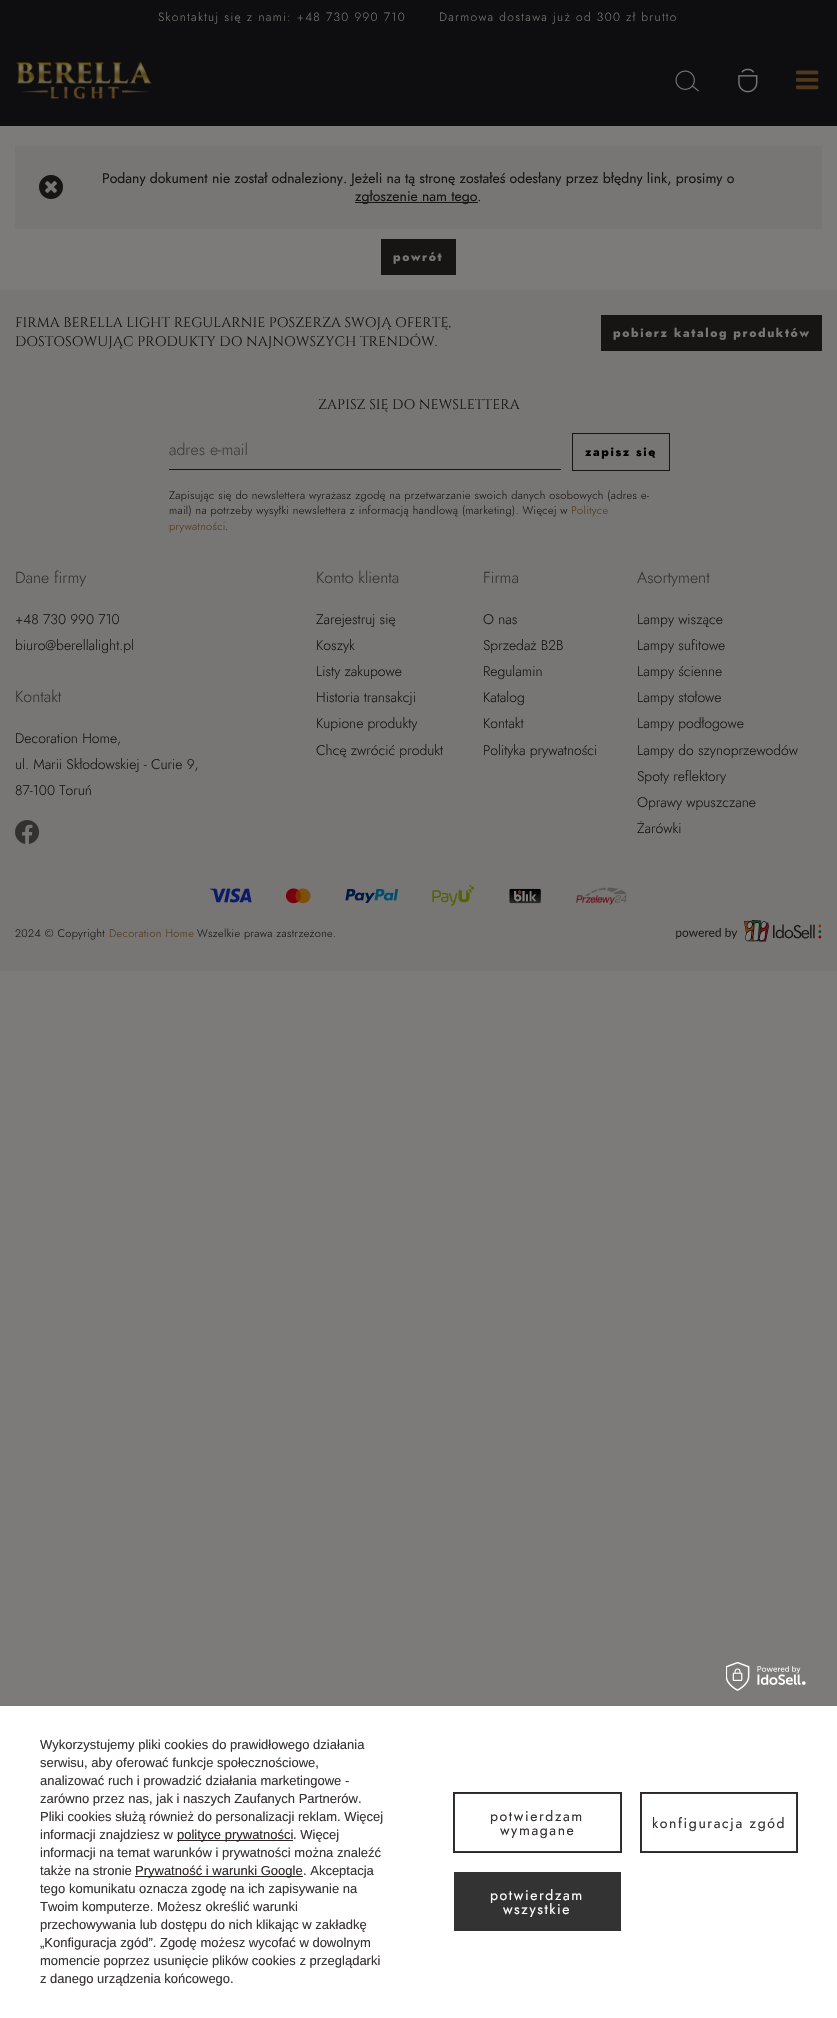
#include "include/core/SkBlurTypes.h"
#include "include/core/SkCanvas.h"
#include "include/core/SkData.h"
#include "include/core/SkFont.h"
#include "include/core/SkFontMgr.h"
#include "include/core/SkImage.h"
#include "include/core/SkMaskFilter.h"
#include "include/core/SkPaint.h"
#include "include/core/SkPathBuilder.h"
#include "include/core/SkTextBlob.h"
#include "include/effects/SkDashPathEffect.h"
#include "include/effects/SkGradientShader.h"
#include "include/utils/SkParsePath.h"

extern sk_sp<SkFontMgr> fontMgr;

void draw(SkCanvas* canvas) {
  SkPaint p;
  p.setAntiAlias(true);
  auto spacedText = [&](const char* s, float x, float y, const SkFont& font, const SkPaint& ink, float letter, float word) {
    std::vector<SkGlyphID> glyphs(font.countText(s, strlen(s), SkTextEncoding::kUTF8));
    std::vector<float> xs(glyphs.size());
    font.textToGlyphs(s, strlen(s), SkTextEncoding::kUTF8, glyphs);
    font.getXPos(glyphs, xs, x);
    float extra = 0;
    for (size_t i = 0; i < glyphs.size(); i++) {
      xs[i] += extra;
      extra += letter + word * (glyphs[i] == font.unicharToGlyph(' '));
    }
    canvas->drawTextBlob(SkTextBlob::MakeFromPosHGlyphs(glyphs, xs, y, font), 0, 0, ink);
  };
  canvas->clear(SkColorSetRGB(124, 123, 122));
  p.setColor(SkColorSetRGB(14, 14, 16));
  canvas->drawRect(SkRect::MakeLTRB(0, 0, 837, 126), p);
  canvas->drawImageRect(SkImages::DeferredFromEncodedData(SkData::MakeFromFileName("images/1.png")), SkRect::MakeLTRB(16, 61, 152, 100), SkSamplingOptions());
  canvas->drawImageRect(SkImages::DeferredFromEncodedData(SkData::MakeFromFileName("images/2.png")), SkRect::MakeLTRB(675, 70, 699, 92), SkSamplingOptions());
  canvas->drawImageRect(SkImages::DeferredFromEncodedData(SkData::MakeFromFileName("images/3.png")), SkRect::MakeLTRB(738, 68, 758, 93), SkSamplingOptions());
  canvas->drawImageRect(SkImages::DeferredFromEncodedData(SkData::MakeFromFileName("images/4.png")), SkRect::MakeLTRB(796, 70, 819, 90), SkSamplingOptions());
  p.setColor(SkColorSetRGB(120, 118, 116));
  canvas->drawRect(SkRect::MakeLTRB(15, 146, 822, 229), p);
  canvas->drawImageRect(SkImages::DeferredFromEncodedData(SkData::MakeFromFileName("images/5.png")), SkRect::MakeLTRB(39, 175, 63, 199), SkSamplingOptions());
  p.setColor(SkColorSetRGB(23, 20, 20));
  canvas->drawRect(SkRect::MakeLTRB(355, 202, 478, 203), p);
  canvas->drawRect(SkRect::MakeLTRB(381, 239, 456, 275), p);
  p.setColor(SkColorSetRGB(120, 118, 116));
  canvas->drawRect(SkRect::MakeLTRB(0, 290, 837, 971), p);
  p.setColor(SkColorSetRGB(23, 20, 20));
  canvas->drawRect(SkRect::MakeLTRB(601, 315, 822, 351), p);
  canvas->drawRect(SkRect::MakeLTRB(169, 469, 561, 470), p);
  p.setStyle(SkPaint::kStroke_Style);
  p.setStrokeWidth(1);
  canvas->drawRect(SkRect::MakeLTRB(572.5f, 433.5f, 669.5f, 470.5f), p);
  canvas->drawImageRect(SkImages::DeferredFromEncodedData(SkData::MakeFromFileName("images/6.png")), SkRect::MakeLTRB(15, 820, 40, 844), SkSamplingOptions());
  canvas->drawImageRect(SkImages::DeferredFromEncodedData(SkData::MakeFromFileName("images/7.png")), SkRect::MakeLTRB(209, 888, 252, 903), SkSamplingOptions());
  canvas->drawImageRect(SkImages::DeferredFromEncodedData(SkData::MakeFromFileName("images/8.png")), SkRect::MakeLTRB(285, 888, 311, 904), SkSamplingOptions());
  canvas->drawImageRect(SkImages::DeferredFromEncodedData(SkData::MakeFromFileName("images/9.png")), SkRect::MakeLTRB(345, 889, 398, 903), SkSamplingOptions());
  canvas->drawImageRect(SkImages::DeferredFromEncodedData(SkData::MakeFromFileName("images/10.png")), SkRect::MakeLTRB(432, 885, 474, 906), SkSamplingOptions());
  canvas->drawImageRect(SkImages::DeferredFromEncodedData(SkData::MakeFromFileName("images/11.png")), SkRect::MakeLTRB(509, 888, 541, 904), SkSamplingOptions());
  canvas->drawImageRect(SkImages::DeferredFromEncodedData(SkData::MakeFromFileName("images/12.png")), SkRect::MakeLTRB(576, 887, 627, 905), SkSamplingOptions());
  canvas->drawImageRect(SkImages::DeferredFromEncodedData(SkData::MakeFromFileName("images/13.png")), SkRect::MakeLTRB(676, 920, 822, 942), SkSamplingOptions());
  p.setStyle(SkPaint::kFill_Style);
  p.setColor(SK_ColorWHITE);
  canvas->drawRect(SkRect::MakeLTRB(0, 1706, 837, 2018), p);
  canvas->drawImageRect(SkImages::DeferredFromEncodedData(SkData::MakeFromFileName("images/14.png")), SkRect::MakeLTRB(726, 1662, 806, 1691), SkSamplingOptions());
  p.setColor(SkColorSetRGB(46, 39, 39));
  canvas->drawRect(SkRect::MakeLTRB(177, 1840, 293, 1841), p);
  canvas->drawRect(SkRect::MakeLTRB(135, 1876, 303, 1877), p);
  p.setStyle(SkPaint::kStroke_Style);
  p.setColor(SkColorSetRGB(51, 51, 51));
  canvas->drawRect(SkRect::MakeLTRB(454.5f, 1793.5f, 620.5f, 1851.5f), p);
  p.setColor(SkColorSetRGB(46, 39, 39));
  canvas->drawRect(SkRect::MakeLTRB(453.5f, 1792.5f, 621.5f, 1852.5f), p);
  p.setColor(SkColorSetRGB(51, 51, 51));
  canvas->drawRect(SkRect::MakeLTRB(641.5f, 1793.5f, 796.5f, 1851.5f), p);
  p.setColor(SkColorSetRGB(46, 39, 39));
  canvas->drawRect(SkRect::MakeLTRB(640.5f, 1792.5f, 797.5f, 1852.5f), p);
  p.setStyle(SkPaint::kFill_Style);
  p.setColor(SkColorSetRGB(51, 51, 51));
  canvas->drawRect(SkRect::MakeLTRB(454, 1872, 621, 1931), p);
  SkFont font1(fontMgr->matchFamilyStyle("Jost", SkFontStyle(300, SkFontStyle::kNormal_Width, SkFontStyle::kUpright_Slant)), 12);
  font1.setSubpixel(true);
  p.setColor(SkColorSetRGB(120, 118, 116));
  spacedText("Skontaktuj się z nami: +48 730 990 710", 158, 21, font1, p, 1.3f, 0);
  spacedText("Darmowa dostawa już od 300 zł brutto", 439, 21, font1, p, 1.3f, 0);
  SkFont font2(fontMgr->matchFamilyStyle("Jost", SkFontStyle::Normal()), 14);
  font2.setSubpixel(true);
  p.setColor(SkColorSetRGB(23, 20, 20));
  canvas->drawString("Podany dokument nie został odnaleziony. Jeżeli na tą stronę zostałeś odesłany przez błędny link, prosimy o", 102, 183, font2, p);
  canvas->drawString("zgłoszenie nam tego.", 355, 201, font2, p);
  SkFont font3(fontMgr->matchFamilyStyle("Jost", SkFontStyle(800, SkFontStyle::kNormal_Width, SkFontStyle::kUpright_Slant)), 12);
  font3.setSubpixel(true);
  p.setColor(SkColorSetRGB(120, 118, 116));
  spacedText("powrót", 393, 261, font3, p, 1.6f, 0);
  SkFont font4(fontMgr->matchFamilyStyle("Cinzel", SkFontStyle::Normal()), 14);
  font4.setSubpixel(true);
  p.setColor(SkColorSetRGB(23, 20, 20));
  canvas->drawString("FIRMA BERELLA LIGHT REGULARNIE POSZERZA SWOJĄ OFERTĘ,", 15, 327, font4, p);
  canvas->drawString("DOSTOSOWUJĄC PRODUKTY DO NAJNOWSZYCH TRENDÓW.", 15, 346, font4, p);
  p.setColor(SkColorSetRGB(120, 118, 116));
  spacedText("pobierz katalog produktów", 613, 337, font3, p, 1.6f, 0);
  p.setColor(SkColorSetRGB(23, 20, 20));
  canvas->drawString("ZAPISZ SIĘ DO NEWSLETTERA", 318, 409, font4, p);
  SkFont font5(fontMgr->matchFamilyStyle("Jost", SkFontStyle(300, SkFontStyle::kNormal_Width, SkFontStyle::kUpright_Slant)), 16);
  font5.setSubpixel(true);
  p.setColor(SkColorSetRGB(59, 59, 59));
  canvas->drawString("adres e-mail", 169, 455, font5, p);
  p.setColor(SK_ColorBLACK);
  spacedText("zapisz się", 585, 456, font3, p, 1.6f, 0);
  SkFont font6(fontMgr->matchFamilyStyle("Jost", SkFontStyle(300, SkFontStyle::kNormal_Width, SkFontStyle::kUpright_Slant)), 11);
  font6.setSubpixel(true);
  p.setColor(SkColorSetRGB(23, 20, 20));
  spacedText("Zapisując się do newslettera wyrażasz zgodę na przetwarzanie swoich danych osobowych (adres e-", 169, 499, font6, p, 0.33f, 0);
  spacedText("mail) na potrzeby wysyłki newslettera z informacją handlową (marketing). Więcej w", 169, 514, font6, p, 0.33f, 0);
  p.setColor(SkColorSetRGB(83, 56, 26));
  spacedText("Polityce", 571, 514, font6, p, 0.33f, 0);
  spacedText("prywatności", 169, 530, font6, p, 0.33f, 0);
  p.setColor(SkColorSetRGB(23, 20, 20));
  spacedText(".", 225, 530, font6, p, 0.33f, 0);
  p.setColor(SkColorSetRGB(53, 49, 49));
  canvas->drawString("Dane firmy", 15, 583, font5, p);
  SkFont font7(fontMgr->matchFamilyStyle("Jost", SkFontStyle(300, SkFontStyle::kNormal_Width, SkFontStyle::kUpright_Slant)), 14);
  font7.setSubpixel(true);
  p.setColor(SkColorSetRGB(23, 20, 20));
  canvas->drawString("+48 730 990 710", 15, 624, font7, p);
  canvas->drawString("biuro@berellalight.pl", 15, 650, font7, p);
  p.setColor(SkColorSetRGB(53, 49, 49));
  canvas->drawString("Kontakt", 15, 702, font5, p);
  p.setColor(SkColorSetRGB(23, 20, 20));
  canvas->drawString("Decoration Home,", 15, 743, font7, p);
  canvas->drawString("ul. Marii Skłodowskiej - Curie 9,", 15, 769, font7, p);
  canvas->drawString("87-100 Toruń", 15, 795, font7, p);
  p.setColor(SkColorSetRGB(53, 49, 49));
  canvas->drawString("Konto klienta", 316, 583, font5, p);
  p.setColor(SkColorSetRGB(23, 20, 20));
  canvas->drawString("Zarejestruj się", 316, 624, font7, p);
  canvas->drawString("Koszyk", 316, 650, font7, p);
  canvas->drawString("Listy zakupowe", 316, 676, font7, p);
  canvas->drawString("Historia transakcji", 316, 702, font7, p);
  canvas->drawString("Kupione produkty", 316, 728, font7, p);
  canvas->drawString("Chcę zwrócić produkt", 316, 755, font7, p);
  p.setColor(SkColorSetRGB(53, 49, 49));
  canvas->drawString("Firma", 483, 583, font5, p);
  p.setColor(SkColorSetRGB(23, 20, 20));
  canvas->drawString("O nas", 483, 624, font7, p);
  canvas->drawString("Sprzedaż B2B", 483, 650, font7, p);
  canvas->drawString("Regulamin", 483, 676, font7, p);
  canvas->drawString("Katalog", 483, 702, font7, p);
  canvas->drawString("Kontakt", 483, 728, font7, p);
  canvas->drawString("Polityka prywatności", 483, 755, font7, p);
  p.setColor(SkColorSetRGB(53, 49, 49));
  canvas->drawString("Asortyment", 637, 583, font5, p);
  p.setColor(SkColorSetRGB(23, 20, 20));
  canvas->drawString("Lampy wiszące", 637, 624, font7, p);
  canvas->drawString("Lampy sufitowe", 637, 650, font7, p);
  canvas->drawString("Lampy ścienne", 637, 676, font7, p);
  canvas->drawString("Lampy stołowe", 637, 702, font7, p);
  canvas->drawString("Lampy podłogowe", 637, 728, font7, p);
  canvas->drawString("Lampy do szynoprzewodów", 637, 755, font7, p);
  canvas->drawString("Spoty reflektory", 637, 781, font7, p);
  canvas->drawString("Oprawy wpuszczane", 637, 807, font7, p);
  canvas->drawString("Żarówki", 637, 833, font7, p);
  spacedText("2024 © Copyright", 15, 937, font6, p, 0.33f, 0);
  p.setColor(SkColorSetRGB(83, 56, 26));
  spacedText("Decoration Home", 109, 937, font6, p, 0.33f, 0);
  p.setColor(SkColorSetRGB(23, 20, 20));
  spacedText("Wszelkie prawa zastrzeżone.", 197, 937, font6, p, 0.33f, 0);
  SkFont font8(fontMgr->matchFamilyStyle("Liberation Sans", SkFontStyle::Normal()), 13);
  font8.setSubpixel(true);
  p.setColor(SkColorSetRGB(53, 49, 49));
  canvas->drawString("Wykorzystujemy pliki cookies do prawidłowego działania", 40, 1749, font8, p);
  canvas->drawString("serwisu, aby oferować funkcje społecznościowe,", 40, 1767, font8, p);
  canvas->drawString("analizować ruch i prowadzić działania marketingowe -", 40, 1785, font8, p);
  canvas->drawString("zarówno przez nas, jak i naszych Zaufanych Partnerów.", 40, 1803, font8, p);
  canvas->drawString("Pliki cookies służą również do personalizacji reklam. Więcej", 40, 1821, font8, p);
  canvas->drawString("informacji znajdziesz w", 40, 1839, font8, p);
  p.setColor(SkColorSetRGB(46, 39, 39));
  canvas->drawString("polityce prywatności", 177, 1839, font8, p);
  p.setColor(SkColorSetRGB(53, 49, 49));
  canvas->drawString(". Więcej", 293, 1839, font8, p);
  canvas->drawString("informacji na temat warunków i prywatności można znaleźć", 40, 1857, font8, p);
  canvas->drawString("także na stronie", 40, 1875, font8, p);
  p.setColor(SkColorSetRGB(46, 39, 39));
  canvas->drawString("Prywatność i warunki Google", 135, 1875, font8, p);
  p.setColor(SkColorSetRGB(53, 49, 49));
  canvas->drawString(". Akceptacja", 303, 1875, font8, p);
  canvas->drawString("tego komunikatu oznacza zgodę na ich zapisywanie na", 40, 1893, font8, p);
  canvas->drawString("Twoim komputerze. Możesz określić warunki", 40, 1911, font8, p);
  canvas->drawString("przechowywania lub dostępu do nich klikając w zakładkę", 40, 1929, font8, p);
  canvas->drawString("„Konfiguracja zgód”. Zgodę możesz wycofać w dowolnym", 40, 1947, font8, p);
  canvas->drawString("momencie poprzez usunięcie plików cookies z przeglądarki", 40, 1965, font8, p);
  canvas->drawString("z danego urządzenia końcowego.", 40, 1983, font8, p);
  spacedText("potwierdzam", 490, 1821, font2, p, 1.6f, 0);
  spacedText("wymagane", 500, 1835, font2, p, 1.6f, 0);
  spacedText("konfiguracja zgód", 652, 1828, font2, p, 1.6f, 0);
  p.setColor(SK_ColorWHITE);
  spacedText("potwierdzam", 490, 1900, font2, p, 1.6f, 0);
  spacedText("wszystkie", 503, 1914, font2, p, 1.6f, 0);
}
